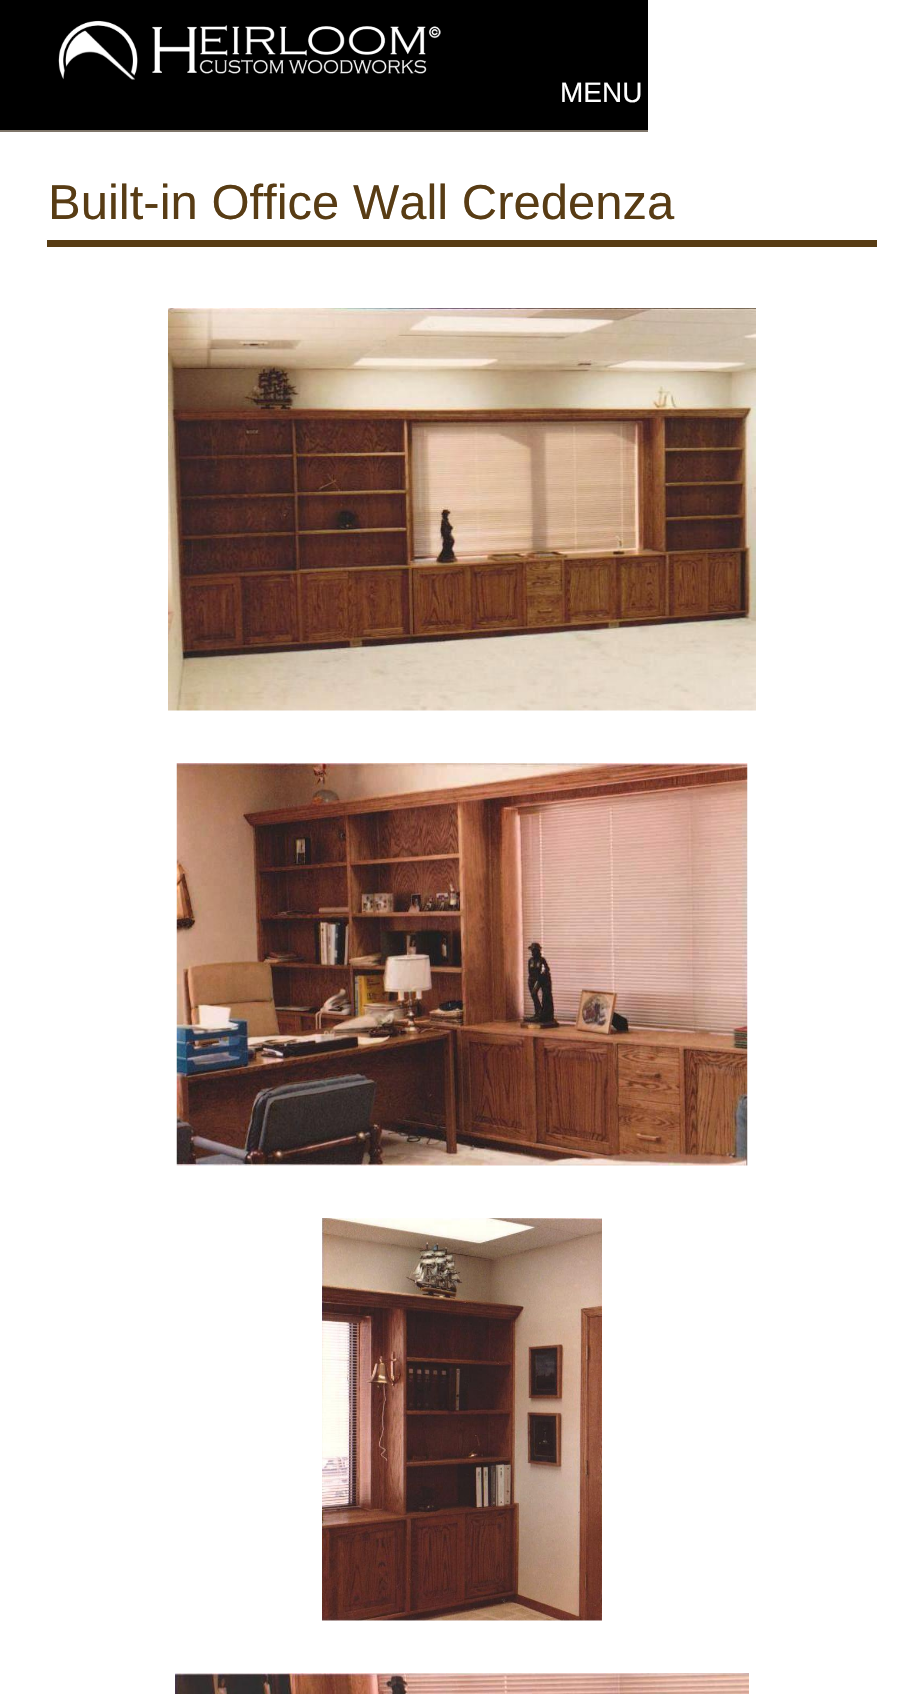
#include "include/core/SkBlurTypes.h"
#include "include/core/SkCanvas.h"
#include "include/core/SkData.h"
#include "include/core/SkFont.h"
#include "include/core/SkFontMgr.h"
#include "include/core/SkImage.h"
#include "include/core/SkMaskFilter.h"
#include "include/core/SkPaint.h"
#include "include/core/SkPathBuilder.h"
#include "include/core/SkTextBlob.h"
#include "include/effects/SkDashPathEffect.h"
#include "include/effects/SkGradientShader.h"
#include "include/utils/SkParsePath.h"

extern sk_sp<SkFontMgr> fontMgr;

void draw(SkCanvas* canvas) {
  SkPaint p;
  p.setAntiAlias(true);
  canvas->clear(SK_ColorWHITE);
  p.setColor(SK_ColorBLACK);
  canvas->drawRect(SkRect::MakeLTRB(0, 0, 648, 130), p);
  p.setColor(SkColorSetRGB(127, 118, 106));
  canvas->drawRect(SkRect::MakeLTRB(0, 130, 648, 132), p);
  canvas->drawImageRect(SkImages::DeferredFromEncodedData(SkData::MakeFromFileName("images/1.png")), SkRect::MakeLTRB(58, 20, 138, 80), SkSamplingOptions());
  canvas->drawImageRect(SkImages::DeferredFromEncodedData(SkData::MakeFromFileName("images/2.png")), SkRect::MakeLTRB(152, 25, 441, 74), SkSamplingOptions());
  p.setColor(SkColorSetRGB(88, 60, 20));
  canvas->drawRect(SkRect::MakeLTRB(47, 240, 877, 247), p);
  canvas->drawImageRect(SkImages::DeferredFromEncodedData(SkData::MakeFromFileName("images/3.png")), SkRect::MakeLTRB(168, 308, 756, 711), SkSamplingOptions());
  canvas->drawImageRect(SkImages::DeferredFromEncodedData(SkData::MakeFromFileName("images/4.png")), SkRect::MakeLTRB(176, 763, 748, 1166), SkSamplingOptions());
  canvas->drawImageRect(SkImages::DeferredFromEncodedData(SkData::MakeFromFileName("images/5.png")), SkRect::MakeLTRB(322, 1218, 602, 1621), SkSamplingOptions());
  canvas->drawImageRect(SkImages::DeferredFromEncodedData(SkData::MakeFromFileName("images/6.png")), SkRect::MakeLTRB(175, 1673, 749, 1694), SkSamplingOptions());
  SkFont font1(fontMgr->matchFamilyStyle("Liberation Sans", SkFontStyle::Normal()), 28);
  font1.setSubpixel(true);
  p.setColor(SK_ColorWHITE);
  canvas->drawString("MENU", 560, 102, font1, p);
  SkFont font2(fontMgr->matchFamilyStyle("Liberation Sans", SkFontStyle::Normal()), 49);
  font2.setSubpixel(true);
  p.setColor(SkColorSetRGB(88, 60, 20));
  canvas->drawString("Built-in Office Wall Credenza", 48, 219, font2, p);
}
